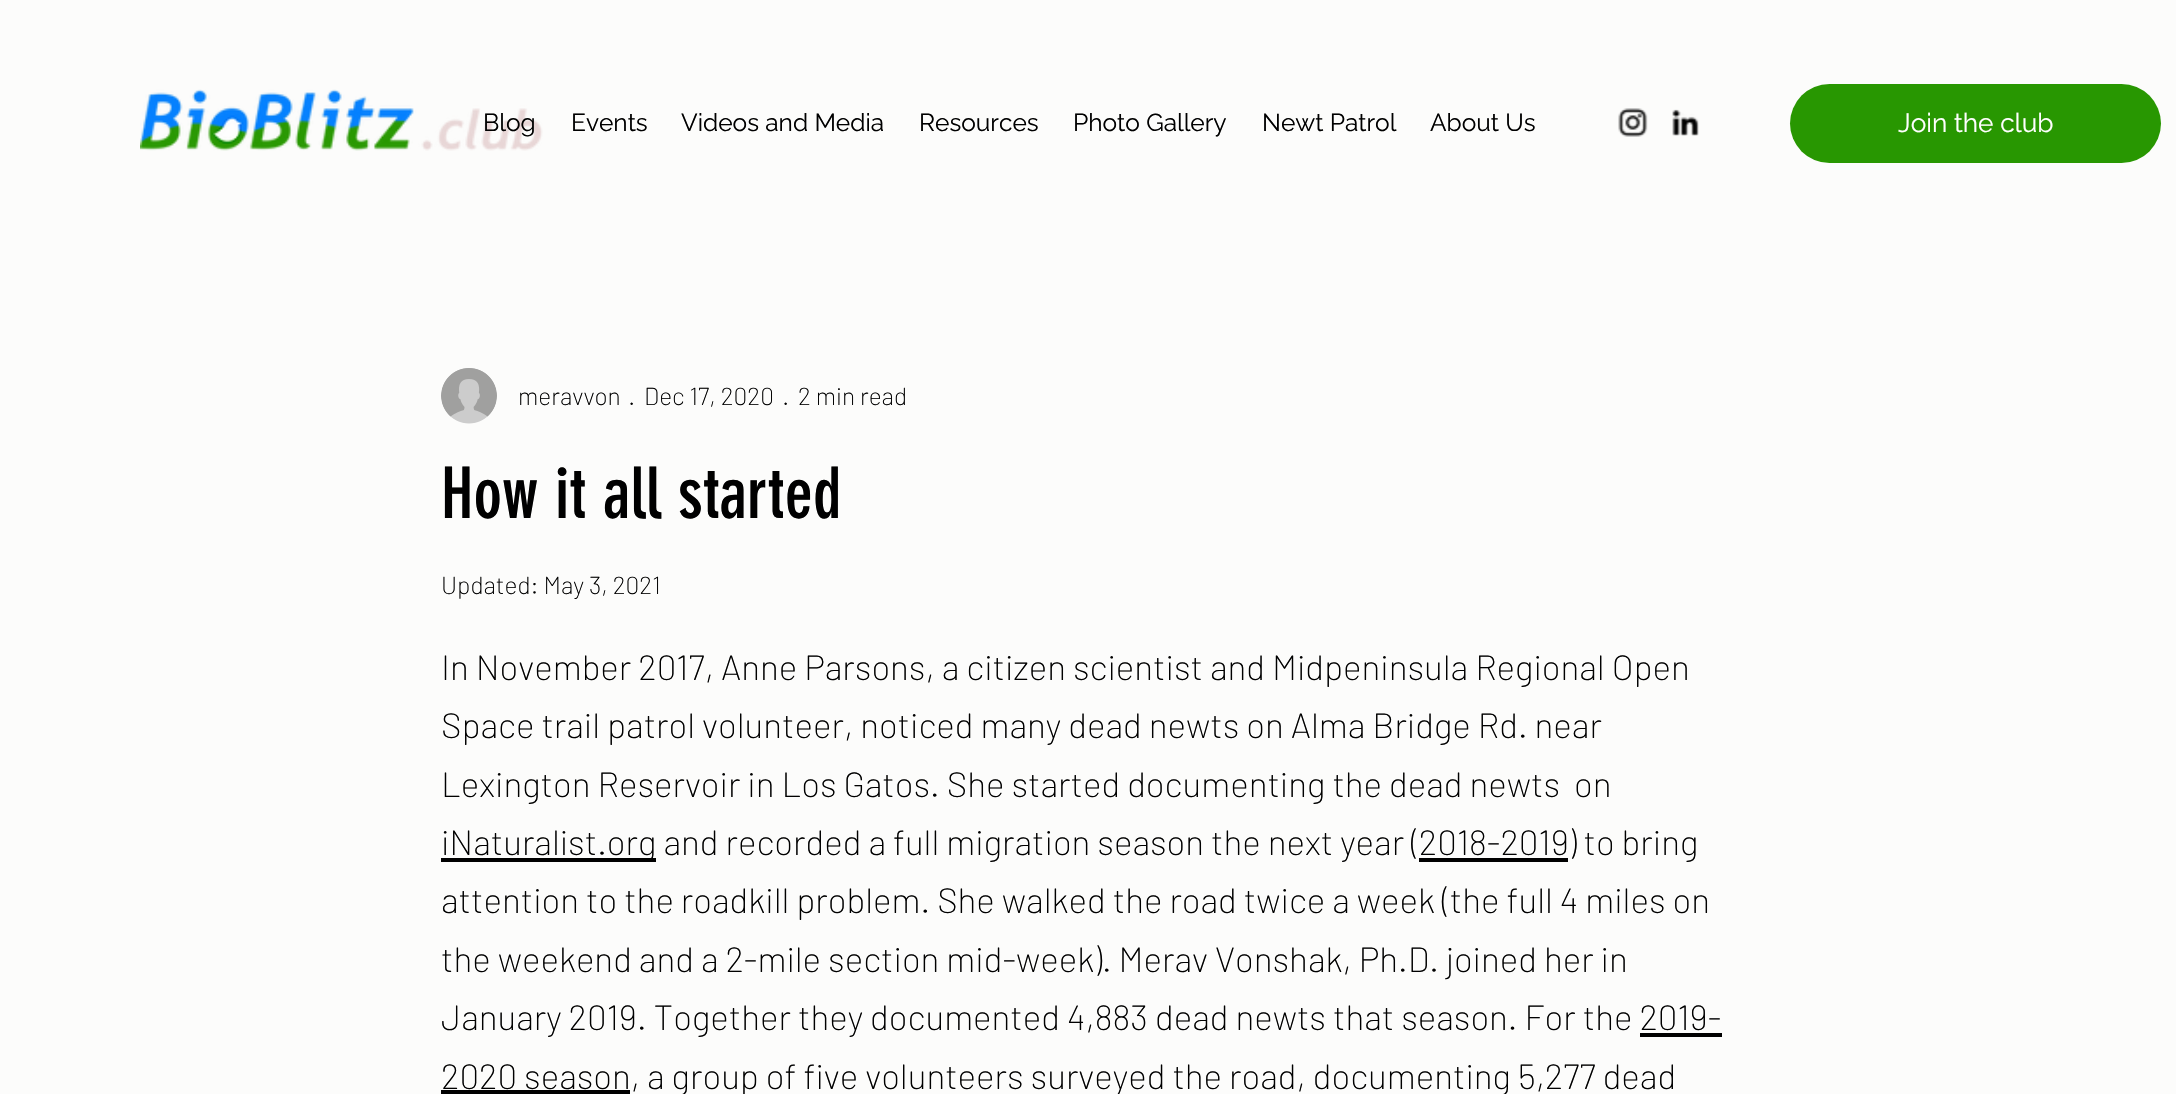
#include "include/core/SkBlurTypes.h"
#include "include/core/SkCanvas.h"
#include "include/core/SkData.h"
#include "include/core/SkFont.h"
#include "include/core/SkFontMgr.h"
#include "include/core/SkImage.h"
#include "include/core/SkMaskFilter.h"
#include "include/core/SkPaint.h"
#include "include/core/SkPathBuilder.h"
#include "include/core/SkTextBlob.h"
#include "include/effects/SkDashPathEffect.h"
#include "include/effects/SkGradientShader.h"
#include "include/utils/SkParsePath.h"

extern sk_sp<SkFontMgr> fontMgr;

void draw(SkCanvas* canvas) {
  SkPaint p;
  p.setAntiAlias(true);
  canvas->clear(SkColorSetRGB(252, 252, 251));
  canvas->drawImageRect(SkImages::DeferredFromEncodedData(SkData::MakeFromFileName("images/1.png")), SkRect::MakeLTRB(140, 89, 543, 151), SkSamplingOptions());
  canvas->drawImageRect(SkImages::DeferredFromEncodedData(SkData::MakeFromFileName("images/2.png")), SkRect::MakeLTRB(1618, 108, 1648, 137), SkSamplingOptions());
  canvas->drawImageRect(SkImages::DeferredFromEncodedData(SkData::MakeFromFileName("images/3.png")), SkRect::MakeLTRB(1672, 109, 1699, 136), SkSamplingOptions());
  p.setColor(SkColorSetRGB(40, 151, 1));
  canvas->drawRoundRect(SkRect::MakeLTRB(1790, 84, 2161, 163), 39.5f, 39.5f, p);
  canvas->drawImageRect(SkImages::DeferredFromEncodedData(SkData::MakeFromFileName("images/4.png")), SkRect::MakeLTRB(441, 368, 497, 424), SkSamplingOptions());
  p.setColor(SK_ColorBLACK);
  canvas->drawRect(SkRect::MakeLTRB(441, 858, 656, 862), p);
  canvas->drawRect(SkRect::MakeLTRB(1419, 858, 1568, 862), p);
  canvas->drawRect(SkRect::MakeLTRB(1640, 1033, 1722, 1037), p);
  canvas->drawRect(SkRect::MakeLTRB(441, 1090, 630, 1094), p);
  SkFont font1(fontMgr->matchFamilyStyle("Raleway", SkFontStyle::Normal()), 24.5f);
  font1.setSubpixel(true);
  canvas->drawString("Blog", 483, 131, font1, p);
  canvas->drawString("Events", 571, 131, font1, p);
  canvas->drawString("Videos and Media", 681, 131, font1, p);
  canvas->drawString("Resources", 919, 131, font1, p);
  canvas->drawString("Photo Gallery", 1073, 131, font1, p);
  canvas->drawString("Newt Patrol", 1262, 131, font1, p);
  canvas->drawString("About Us", 1430, 131, font1, p);
  SkFont font2(fontMgr->matchFamilyStyle("Raleway", SkFontStyle::Normal()), 26.25f);
  font2.setSubpixel(true);
  p.setColor(SK_ColorWHITE);
  canvas->drawString("Join the club", 1898, 132, font2, p);
  SkFont font3(fontMgr->matchFamilyStyle("Barlow", SkFontStyle(200, SkFontStyle::kNormal_Width, SkFontStyle::kUpright_Slant)), 24.5f);
  font3.setSubpixel(true);
  p.setColor(SK_ColorBLACK);
  canvas->drawString("meravvon", 518, 405, font3, p);
  canvas->drawString("·", 631, 405, font3, p);
  canvas->drawString("Dec 17, 2020", 644, 405, font3, p);
  canvas->drawString("·", 785, 405, font3, p);
  canvas->drawString("2 min read", 798, 405, font3, p);
  SkFont font4(fontMgr->matchFamilyStyle("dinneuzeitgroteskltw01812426", SkFontStyle::Normal()), 70);
  font4.setSubpixel(true);
  canvas->drawString("How it all started", 441, 518, font4, p);
  canvas->drawString("Updated: May 3, 2021", 441, 594, font3, p);
  SkFont font5(fontMgr->matchFamilyStyle("Barlow", SkFontStyle(200, SkFontStyle::kNormal_Width, SkFontStyle::kUpright_Slant)), 35);
  font5.setSubpixel(true);
  canvas->drawString("In November 2017, Anne Parsons, a citizen scientist and Midpeninsula Regional Open", 441, 680, font5, p);
  canvas->drawString("Space trail patrol volunteer, noticed many dead newts on Alma Bridge Rd. near", 441, 738, font5, p);
  canvas->drawString("Lexington Reservoir in Los Gatos. She started documenting the dead newts  on", 441, 797, font5, p);
  canvas->drawString("iNaturalist.org and recorded a full migration season the next year (2018-2019) to bring", 441, 855, font5, p);
  canvas->drawString("attention to the roadkill problem. She walked the road twice a week (the full 4 miles on", 441, 913, font5, p);
  canvas->drawString("the weekend and a 2-mile section mid-week). Merav Vonshak, Ph.D. joined her in", 441, 972, font5, p);
  canvas->drawString("January 2019. Together they documented 4,883 dead newts that season. For the 2019-", 441, 1030, font5, p);
  canvas->drawString("2020 season, a group of five volunteers surveyed the road, documenting 5,277 dead", 441, 1089, font5, p);
}
